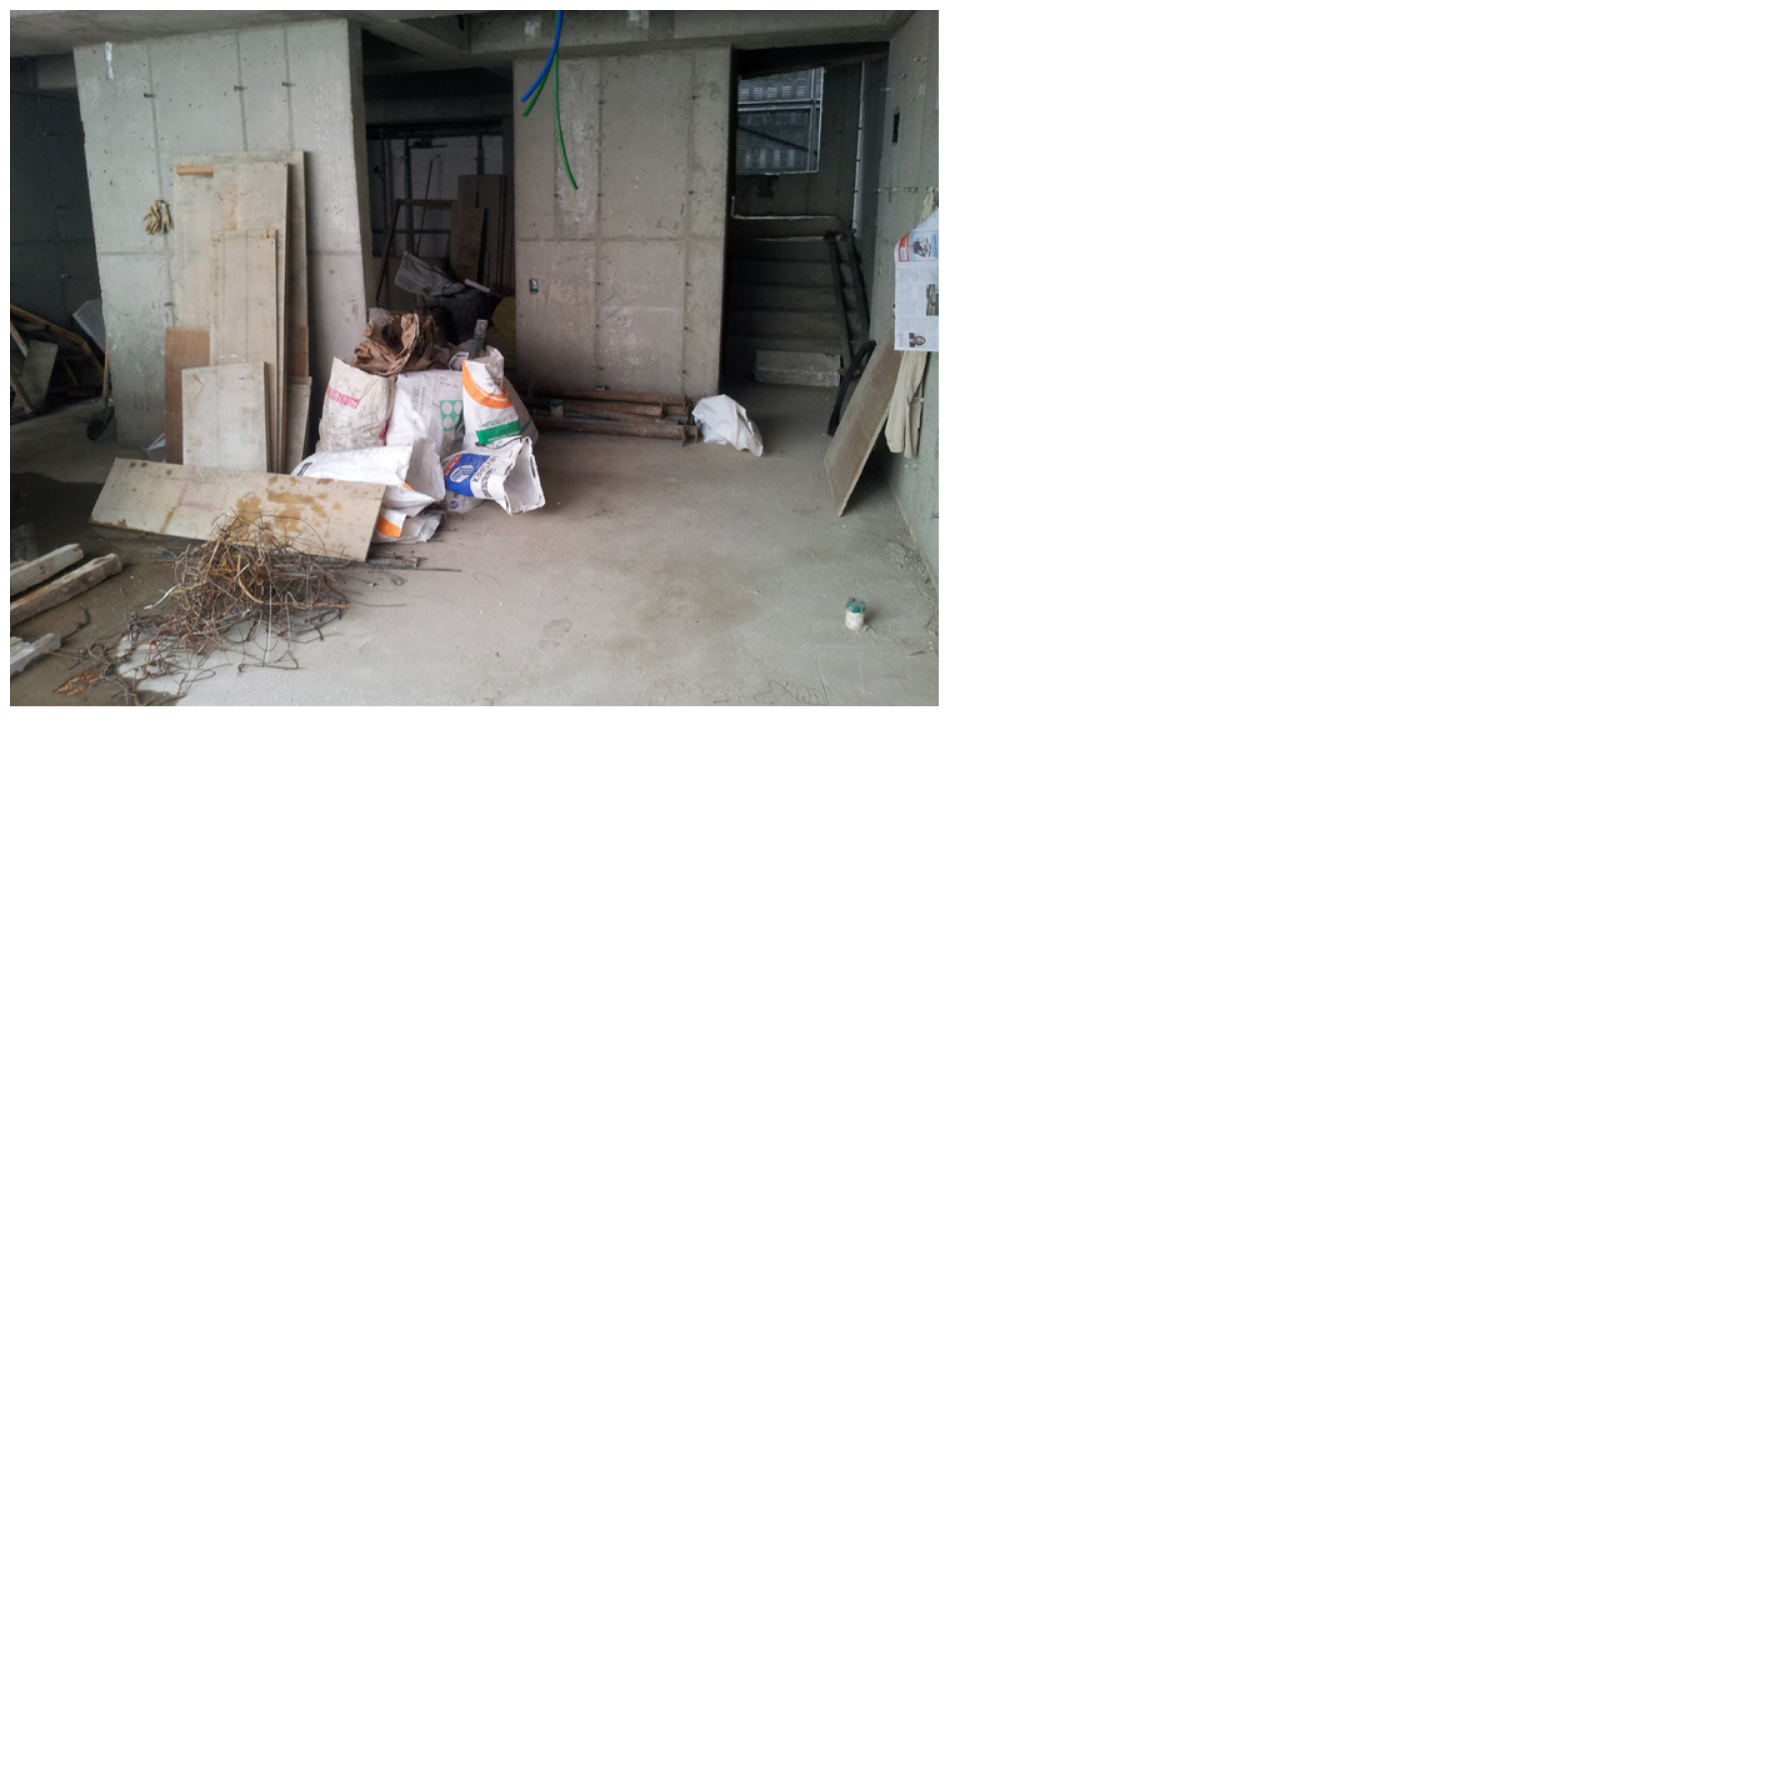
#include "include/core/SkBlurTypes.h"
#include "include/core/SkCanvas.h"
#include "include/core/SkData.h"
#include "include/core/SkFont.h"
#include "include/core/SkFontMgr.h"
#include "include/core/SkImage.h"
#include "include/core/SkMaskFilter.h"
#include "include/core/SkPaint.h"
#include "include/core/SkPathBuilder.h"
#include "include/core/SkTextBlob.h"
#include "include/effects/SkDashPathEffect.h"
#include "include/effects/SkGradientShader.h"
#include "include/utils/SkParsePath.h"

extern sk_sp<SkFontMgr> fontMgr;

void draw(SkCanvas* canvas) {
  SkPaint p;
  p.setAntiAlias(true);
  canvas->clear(SK_ColorWHITE);
  canvas->drawImageRect(SkImages::DeferredFromEncodedData(SkData::MakeFromFileName("images/1.png")), SkRect::MakeLTRB(10, 10, 939, 707), SkSamplingOptions());
}
